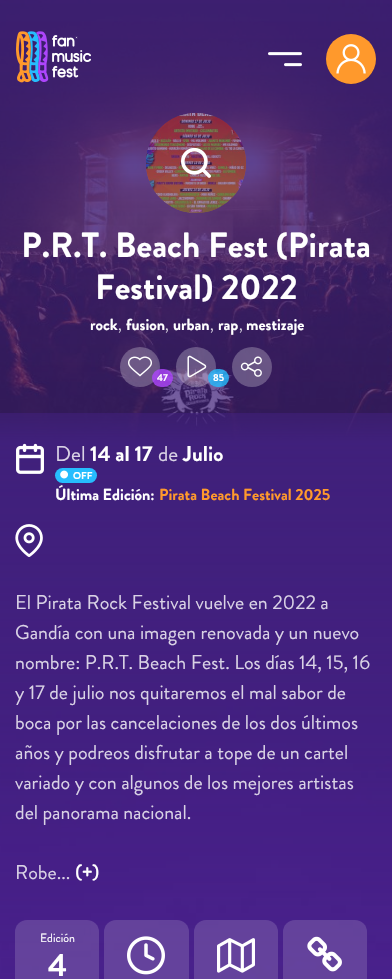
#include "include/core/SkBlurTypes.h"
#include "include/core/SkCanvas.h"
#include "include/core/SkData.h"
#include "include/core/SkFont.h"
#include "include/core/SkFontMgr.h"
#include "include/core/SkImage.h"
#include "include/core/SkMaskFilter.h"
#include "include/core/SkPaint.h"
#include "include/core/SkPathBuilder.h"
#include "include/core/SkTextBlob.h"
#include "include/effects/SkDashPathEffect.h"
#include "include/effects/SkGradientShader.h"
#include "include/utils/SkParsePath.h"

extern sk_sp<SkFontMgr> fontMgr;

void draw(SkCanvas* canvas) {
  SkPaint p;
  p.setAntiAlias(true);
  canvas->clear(SkColorSetRGB(64, 32, 123));
  canvas->drawImageRect(SkImages::DeferredFromEncodedData(SkData::MakeFromFileName("images/1.png")), SkRect::MakeLTRB(0, 0, 392, 441), SkSamplingOptions());
  canvas->drawImageRect(SkImages::DeferredFromEncodedData(SkData::MakeFromFileName("images/4.png")), SkRect::MakeLTRB(36, 31, 49, 82), SkSamplingOptions());
  canvas->drawImageRect(SkImages::DeferredFromEncodedData(SkData::MakeFromFileName("images/3.png")), SkRect::MakeLTRB(27, 31, 40, 82), SkSamplingOptions());
  canvas->drawImageRect(SkImages::DeferredFromEncodedData(SkData::MakeFromFileName("images/2.png")), SkRect::MakeLTRB(16, 31, 32, 83), SkSamplingOptions());
  canvas->drawImageRect(SkImages::DeferredFromEncodedData(SkData::MakeFromFileName("images/5.png")), SkRect::MakeLTRB(52, 35, 58, 47), SkSamplingOptions());
  canvas->drawImageRect(SkImages::DeferredFromEncodedData(SkData::MakeFromFileName("images/6.png")), SkRect::MakeLTRB(57, 37, 67, 47), SkSamplingOptions());
  canvas->drawImageRect(SkImages::DeferredFromEncodedData(SkData::MakeFromFileName("images/7.png")), SkRect::MakeLTRB(66, 37, 75, 47), SkSamplingOptions());
  p.setColor(SkColorSetRGB(100, 76, 139));
  canvas->drawRect(SkRect::MakeLTRB(76, 37, 77, 38), p);
  canvas->drawImageRect(SkImages::DeferredFromEncodedData(SkData::MakeFromFileName("images/8.png")), SkRect::MakeLTRB(76, 37, 77, 38), SkSamplingOptions());
  p.setColor(SkColorSetARGB(13, 255, 255, 255));
  canvas->drawRect(SkRect::MakeLTRB(75, 36, 78, 39), p);
  canvas->drawImageRect(SkImages::DeferredFromEncodedData(SkData::MakeFromFileName("images/9.png")), SkRect::MakeLTRB(52, 52, 65, 63), SkSamplingOptions());
  canvas->drawImageRect(SkImages::DeferredFromEncodedData(SkData::MakeFromFileName("images/10.png")), SkRect::MakeLTRB(65, 53, 73, 62), SkSamplingOptions());
  canvas->drawImageRect(SkImages::DeferredFromEncodedData(SkData::MakeFromFileName("images/11.png")), SkRect::MakeLTRB(73, 52, 80, 62), SkSamplingOptions());
  canvas->drawImageRect(SkImages::DeferredFromEncodedData(SkData::MakeFromFileName("images/12.png")), SkRect::MakeLTRB(80, 50, 83, 62), SkSamplingOptions());
  canvas->drawImageRect(SkImages::DeferredFromEncodedData(SkData::MakeFromFileName("images/13.png")), SkRect::MakeLTRB(83, 52, 91, 62), SkSamplingOptions());
  canvas->drawImageRect(SkImages::DeferredFromEncodedData(SkData::MakeFromFileName("images/14.png")), SkRect::MakeLTRB(52, 65, 58, 78), SkSamplingOptions());
  canvas->drawImageRect(SkImages::DeferredFromEncodedData(SkData::MakeFromFileName("images/15.png")), SkRect::MakeLTRB(57, 68, 66, 78), SkSamplingOptions());
  canvas->drawImageRect(SkImages::DeferredFromEncodedData(SkData::MakeFromFileName("images/16.png")), SkRect::MakeLTRB(66, 68, 73, 78), SkSamplingOptions());
  canvas->drawImageRect(SkImages::DeferredFromEncodedData(SkData::MakeFromFileName("images/17.png")), SkRect::MakeLTRB(72, 66, 79, 78), SkSamplingOptions());
  canvas->drawImageRect(SkImages::DeferredFromEncodedData(SkData::MakeFromFileName("images/18.png")), SkRect::MakeLTRB(268, 52, 302, 67), SkSamplingOptions());
  canvas->save();
  canvas->clipPath(SkPathBuilder().moveTo(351, 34).cubicTo(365, 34, 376, 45, 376, 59).cubicTo(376, 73, 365, 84, 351, 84).cubicTo(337, 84, 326, 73, 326, 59).cubicTo(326, 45, 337, 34, 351, 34).close().detach(), true);
  p.setColor(SkColorSetARGB(64, 0, 0, 0));
  p.setMaskFilter(SkMaskFilter::MakeBlur(kNormal_SkBlurStyle, 2));
  canvas->drawRoundRect(SkRect::MakeLTRB(326, 38, 376, 88), 25, 25, p);
  p.setMaskFilter(nullptr);
  canvas->restore();
  p.setColor(SkColorSetRGB(255, 153, 44));
  canvas->drawCircle(351, 59, 25, p);
  canvas->drawImageRect(SkImages::DeferredFromEncodedData(SkData::MakeFromFileName("images/19.png")), SkRect::MakeLTRB(336, 44, 366, 74), SkSamplingOptions());
  canvas->drawImageRect(SkImages::DeferredFromEncodedData(SkData::MakeFromFileName("images/20.png")), SkRect::MakeLTRB(146, 113, 246, 213), SkSamplingOptions());
  p.setColor(SkColorSetARGB(128, 64, 32, 123));
  canvas->drawCircle(196, 163, 50, p);
  canvas->drawImageRect(SkImages::DeferredFromEncodedData(SkData::MakeFromFileName("images/21.png")), SkRect::MakeLTRB(181, 147, 211, 178), SkSamplingOptions());
  p.setColor(SkColorSetARGB(64, 255, 255, 255));
  canvas->drawCircle(140, 367, 20, p);
  canvas->drawImageRect(SkImages::DeferredFromEncodedData(SkData::MakeFromFileName("images/22.png")), SkRect::MakeLTRB(128, 356, 152, 377), SkSamplingOptions());
  p.setColor(SkColorSetARGB(204, 173, 69, 252));
  canvas->drawRoundRect(SkRect::MakeLTRB(152, 369, 173, 387), 9, 9, p);
  p.setColor(SkColorSetARGB(64, 255, 255, 255));
  canvas->drawCircle(196, 367, 20, p);
  canvas->drawImageRect(SkImages::DeferredFromEncodedData(SkData::MakeFromFileName("images/23.png")), SkRect::MakeLTRB(187, 355, 207, 378), SkSamplingOptions());
  p.setColor(SkColorSetARGB(204, 38, 189, 254));
  canvas->drawRoundRect(SkRect::MakeLTRB(208, 369, 229, 387), 9, 9, p);
  p.setColor(SkColorSetARGB(64, 255, 255, 255));
  canvas->drawCircle(252, 367, 20, p);
  canvas->drawImageRect(SkImages::DeferredFromEncodedData(SkData::MakeFromFileName("images/24.png")), SkRect::MakeLTRB(240, 356, 262, 377), SkSamplingOptions());
  canvas->drawImageRect(SkImages::DeferredFromEncodedData(SkData::MakeFromFileName("images/25.png")), SkRect::MakeLTRB(0, 442, 392, 979), SkSamplingOptions());
  canvas->drawImageRect(SkImages::DeferredFromEncodedData(SkData::MakeFromFileName("images/26.png")), SkRect::MakeLTRB(16, 443, 44, 474), SkSamplingOptions());
  p.setColor(SkColorSetRGB(38, 189, 254));
  canvas->drawRoundRect(SkRect::MakeLTRB(55, 468, 97, 483), 7.5f, 7.5f, p);
  canvas->drawImageRect(SkImages::DeferredFromEncodedData(SkData::MakeFromFileName("images/27.png")), SkRect::MakeLTRB(60, 470, 68, 479), SkSamplingOptions());
  canvas->drawImageRect(SkImages::DeferredFromEncodedData(SkData::MakeFromFileName("images/28.png")), SkRect::MakeLTRB(15, 524, 43, 557), SkSamplingOptions());
  p.setColor(SkColorSetARGB(38, 255, 255, 255));
  canvas->drawRoundRect(SkRect::MakeLTRB(15, 920, 99, 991), 12, 12, p);
  canvas->drawRoundRect(SkRect::MakeLTRB(104, 920, 189, 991), 12, 12, p);
  canvas->drawImageRect(SkImages::DeferredFromEncodedData(SkData::MakeFromFileName("images/29.png")), SkRect::MakeLTRB(127, 936, 165, 975), SkSamplingOptions());
  canvas->drawRoundRect(SkRect::MakeLTRB(194, 920, 278, 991), 12, 12, p);
  canvas->drawImageRect(SkImages::DeferredFromEncodedData(SkData::MakeFromFileName("images/30.png")), SkRect::MakeLTRB(217, 938, 255, 973), SkSamplingOptions());
  canvas->drawRoundRect(SkRect::MakeLTRB(283, 920, 367, 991), 12, 12, p);
  canvas->drawImageRect(SkImages::DeferredFromEncodedData(SkData::MakeFromFileName("images/31.png")), SkRect::MakeLTRB(307, 936, 342, 972), SkSamplingOptions());
  SkFont font1(fontMgr->matchFamilyStyle("Brandon Grotesque", SkFontStyle::Bold()), 35);
  font1.setSubpixel(true);
  p.setColor(SK_ColorWHITE);
  canvas->drawString("P.R.T. Beach Fest (Pirata", 21, 257, font1, p);
  canvas->drawString("Festival) 2022", 95, 299, font1, p);
  SkFont font2(fontMgr->matchFamilyStyle("Brandon Grotesque", SkFontStyle::Bold()), 16);
  font2.setSubpixel(true);
  canvas->drawString("rock", 90, 330, font2, p);
  SkFont font3(fontMgr->matchFamilyStyle("Brandon Grotesque", SkFontStyle::Normal()), 16);
  font3.setSubpixel(true);
  p.setColor(SkColorSetRGB(215, 210, 223));
  canvas->drawString(",", 118, 330, font3, p);
  p.setColor(SK_ColorWHITE);
  canvas->drawString("fusion", 126, 330, font2, p);
  p.setColor(SkColorSetRGB(215, 210, 223));
  canvas->drawString(",", 165, 330, font3, p);
  p.setColor(SK_ColorWHITE);
  canvas->drawString("urban", 173, 330, font2, p);
  p.setColor(SkColorSetRGB(215, 210, 223));
  canvas->drawString(",", 210, 330, font3, p);
  p.setColor(SK_ColorWHITE);
  canvas->drawString("rap", 218, 330, font2, p);
  p.setColor(SkColorSetRGB(215, 210, 223));
  canvas->drawString(",", 239, 330, font3, p);
  p.setColor(SK_ColorWHITE);
  canvas->drawString("mestizaje", 246, 330, font2, p);
  SkFont font4(fontMgr->matchFamilyStyle("Brandon Grotesque", SkFontStyle::Bold()), 10);
  font4.setSubpixel(true);
  canvas->drawString("47", 157, 381, font4, p);
  canvas->drawString("85", 213, 381, font4, p);
  SkFont font5(fontMgr->matchFamilyStyle("Brandon Grotesque", SkFontStyle::Normal()), 21.5f);
  font5.setSubpixel(true);
  p.setColor(SkColorSetRGB(217, 210, 229));
  canvas->drawString("Del", 55, 461, font5, p);
  SkFont font6(fontMgr->matchFamilyStyle("Brandon Grotesque", SkFontStyle::Bold()), 21.5f);
  font6.setSubpixel(true);
  p.setColor(SK_ColorWHITE);
  canvas->drawString("14 al 17", 90, 461, font6, p);
  p.setColor(SkColorSetRGB(217, 210, 229));
  canvas->drawString("de", 158, 461, font5, p);
  p.setColor(SK_ColorWHITE);
  canvas->drawString("Julio", 183, 461, font6, p);
  canvas->drawString("OFF", 73, 479, font4, p);
  canvas->drawString("Última Edición:", 55, 500, font2, p);
  p.setColor(SkColorSetRGB(255, 153, 44));
  canvas->drawString("Pirata Beach Festival 2025", 159, 500, font2, p);
  SkFont font7(fontMgr->matchFamilyStyle("Brandon Grotesque", SkFontStyle::Normal()), 20);
  font7.setSubpixel(true);
  p.setColor(SkColorSetRGB(217, 210, 229));
  canvas->drawString("El Pirata Rock Festival vuelve en 2022 a", 15, 609, font7, p);
  canvas->drawString("Gandía con una imagen renovada y un nuevo", 15, 639, font7, p);
  canvas->drawString("nombre: P.R.T. Beach Fest. Los días 14, 15, 16", 15, 669, font7, p);
  canvas->drawString("y 17 de julio nos quitaremos el mal sabor de", 15, 699, font7, p);
  canvas->drawString("boca por las cancelaciones de los dos últimos", 15, 729, font7, p);
  canvas->drawString("años y podreos disfrutar a tope de un cartel", 15, 759, font7, p);
  canvas->drawString("variado y con algunos de los mejores artistas", 15, 789, font7, p);
  canvas->drawString("del panorama nacional.", 15, 819, font7, p);
  canvas->drawString("Robe...", 15, 879, font7, p);
  SkFont font8(fontMgr->matchFamilyStyle("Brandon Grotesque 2", SkFontStyle::Bold()), 20);
  font8.setSubpixel(true);
  p.setColor(SK_ColorWHITE);
  canvas->drawString("(+)", 75, 879, font8, p);
  SkFont font9(fontMgr->matchFamilyStyle("Brandon Grotesque", SkFontStyle::Normal()), 12);
  font9.setSubpixel(true);
  canvas->drawString("Edición", 40, 942, font9, p);
  SkFont font10(fontMgr->matchFamilyStyle("Brandon Grotesque", SkFontStyle::Bold()), 32);
  font10.setSubpixel(true);
  canvas->drawString("4", 48, 976, font10, p);
}
